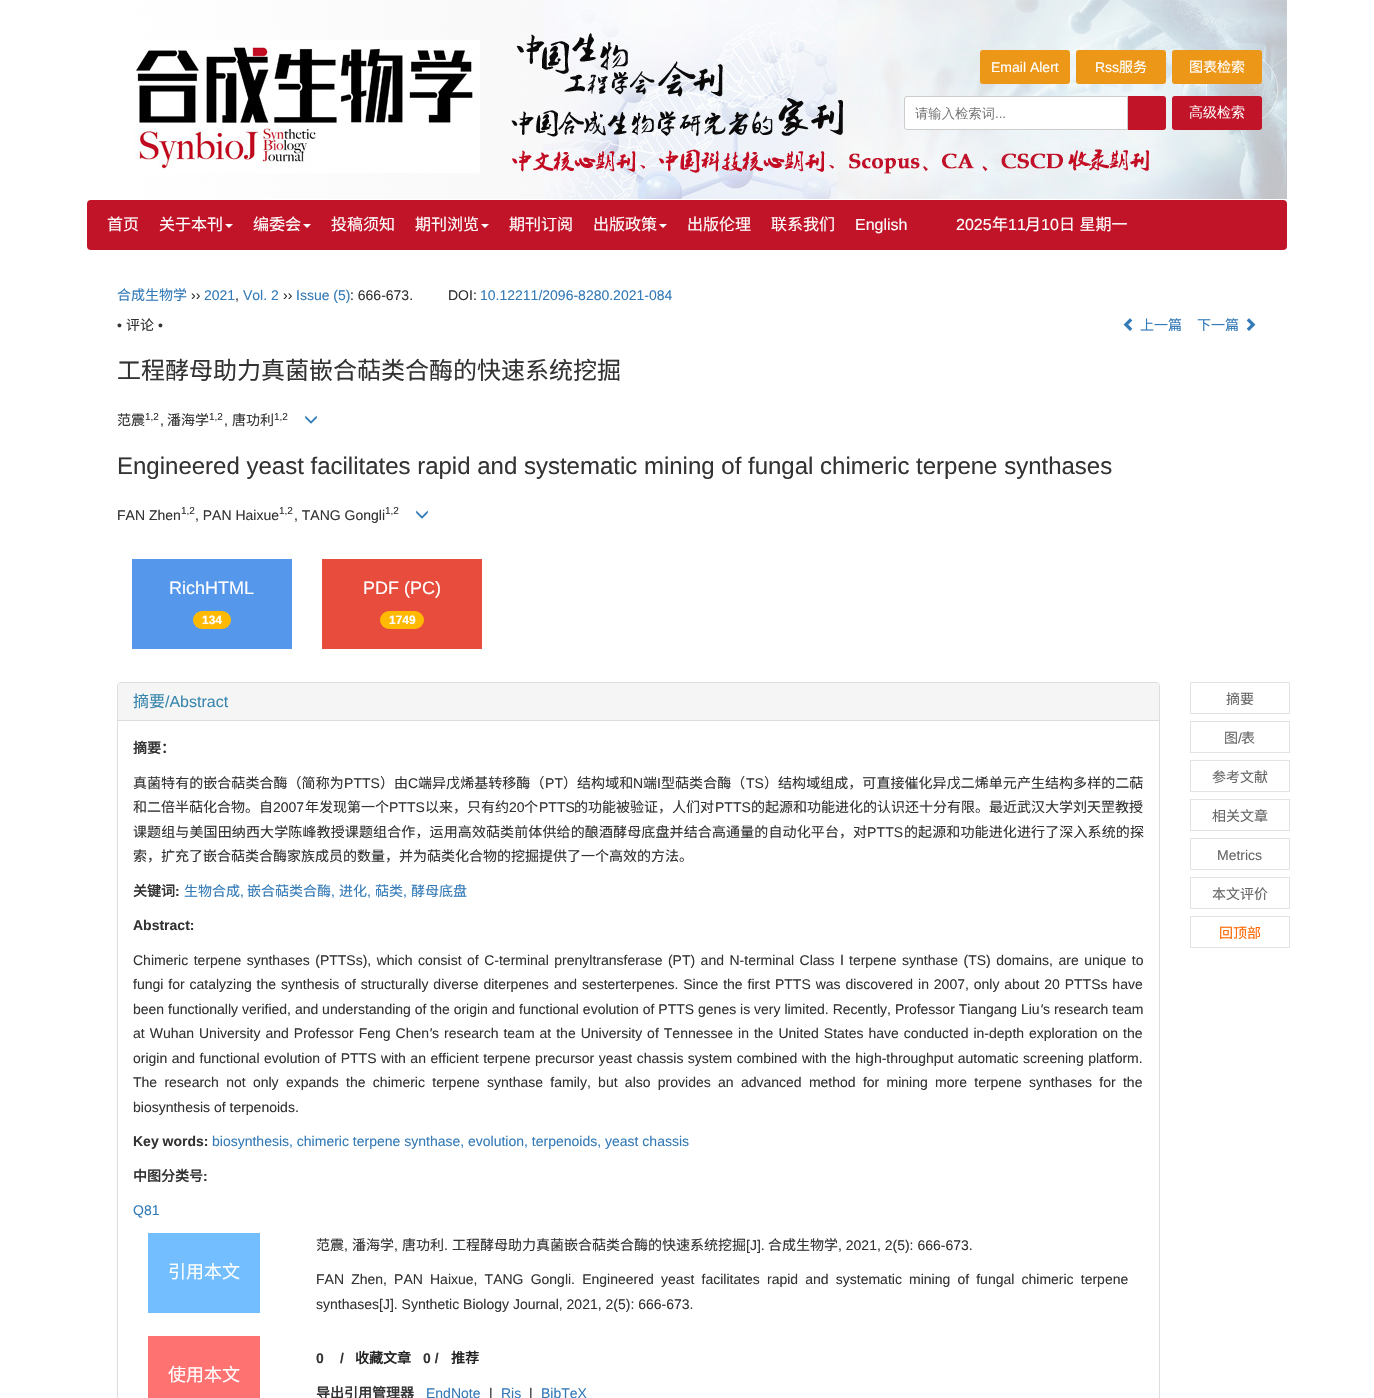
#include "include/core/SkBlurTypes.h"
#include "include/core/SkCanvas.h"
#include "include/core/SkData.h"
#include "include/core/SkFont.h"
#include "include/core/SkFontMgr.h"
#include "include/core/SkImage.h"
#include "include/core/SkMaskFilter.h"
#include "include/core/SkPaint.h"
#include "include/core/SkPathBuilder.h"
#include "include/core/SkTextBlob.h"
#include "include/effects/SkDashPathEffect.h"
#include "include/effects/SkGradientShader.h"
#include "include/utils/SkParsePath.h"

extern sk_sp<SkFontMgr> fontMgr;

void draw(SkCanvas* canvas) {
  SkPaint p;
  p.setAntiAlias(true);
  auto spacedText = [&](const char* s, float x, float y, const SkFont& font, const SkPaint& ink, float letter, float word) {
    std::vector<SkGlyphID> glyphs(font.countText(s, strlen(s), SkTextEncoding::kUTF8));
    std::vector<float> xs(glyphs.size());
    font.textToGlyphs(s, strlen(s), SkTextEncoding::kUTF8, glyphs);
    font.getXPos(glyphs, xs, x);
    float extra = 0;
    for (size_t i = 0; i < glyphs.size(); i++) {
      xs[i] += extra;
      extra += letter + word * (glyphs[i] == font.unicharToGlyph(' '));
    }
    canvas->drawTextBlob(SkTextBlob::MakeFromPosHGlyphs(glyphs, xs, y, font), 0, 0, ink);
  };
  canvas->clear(SK_ColorWHITE);
  canvas->drawImageRect(SkImages::DeferredFromEncodedData(SkData::MakeFromFileName("images/1.png")), SkRect::MakeLTRB(135, 0, 1287, 199), SkSamplingOptions());
  p.setColor(SkColorSetRGB(236, 151, 23));
  canvas->drawRoundRect(SkRect::MakeLTRB(980, 50, 1070, 84), 3, 3, p);
  canvas->drawRoundRect(SkRect::MakeLTRB(1076, 50, 1166, 84), 3, 3, p);
  canvas->drawRoundRect(SkRect::MakeLTRB(1172, 50, 1262, 84), 3, 3, p);
  canvas->drawImageRect(SkImages::DeferredFromEncodedData(SkData::MakeFromFileName("images/2.png")), SkRect::MakeLTRB(904, 96, 1262, 130), SkSamplingOptions());
  p.setColor(SkColorSetRGB(193, 20, 40));
  canvas->drawRoundRect(SkRect::MakeLTRB(87, 200, 1287, 250), 4, 4, p);
  p.setColor(SK_ColorWHITE);
  canvas->drawPath(SkPathBuilder().moveTo(225, 224).lineTo(233, 224).lineTo(229, 228).close().detach(), p);
  canvas->drawPath(SkPathBuilder().moveTo(303, 224).lineTo(311, 224).lineTo(307, 228).close().detach(), p);
  canvas->drawPath(SkPathBuilder().moveTo(481, 224).lineTo(489, 224).lineTo(485, 228).close().detach(), p);
  canvas->drawPath(SkPathBuilder().moveTo(659, 224).lineTo(667, 224).lineTo(663, 228).close().detach(), p);
  canvas->drawImageRect(SkImages::DeferredFromEncodedData(SkData::MakeFromFileName("images/3.png")), SkRect::MakeLTRB(1123, 318, 1133, 331), SkSamplingOptions());
  canvas->drawImageRect(SkImages::DeferredFromEncodedData(SkData::MakeFromFileName("images/4.png")), SkRect::MakeLTRB(1246, 318, 1256, 331), SkSamplingOptions());
  canvas->drawImageRect(SkImages::DeferredFromEncodedData(SkData::MakeFromFileName("images/5.png")), SkRect::MakeLTRB(305, 415, 317, 424), SkSamplingOptions());
  canvas->drawImageRect(SkImages::DeferredFromEncodedData(SkData::MakeFromFileName("images/5.png")), SkRect::MakeLTRB(416, 510, 428, 519), SkSamplingOptions());
  p.setColor(SkColorSetRGB(84, 151, 235));
  canvas->drawRect(SkRect::MakeLTRB(132, 559, 292, 649), p);
  p.setColor(SkColorSetRGB(255, 185, 0));
  canvas->drawRoundRect(SkRect::MakeLTRB(193, 611, 231, 629), 9, 9, p);
  p.setColor(SkColorSetRGB(231, 76, 60));
  canvas->drawRect(SkRect::MakeLTRB(322, 559, 482, 649), p);
  p.setColor(SkColorSetRGB(255, 185, 0));
  canvas->drawRoundRect(SkRect::MakeLTRB(380, 611, 424, 629), 9, 9, p);
  p.setStyle(SkPaint::kStroke_Style);
  p.setStrokeWidth(1);
  p.setColor(SkColorSetRGB(221, 221, 221));
  canvas->drawRoundRect(SkRect::MakeLTRB(117.5f, 682.5f, 1159.5f, 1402.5f), 3.5f, 3.5f, p);
  p.setStyle(SkPaint::kFill_Style);
  p.setColor(SkColorSetRGB(245, 245, 245));
  canvas->drawPath(SkPathBuilder().moveTo(121, 683).lineTo(1156, 683).cubicTo(1157.5f, 683, 1159, 684.5f, 1159, 686).lineTo(1159, 720).lineTo(118, 720).lineTo(118, 686).cubicTo(118, 684.5f, 119.5f, 683, 121, 683).close().detach(), p);
  p.setColor(SkColorSetRGB(221, 221, 221));
  canvas->drawRect(SkRect::MakeLTRB(118, 720, 1159, 721), p);
  p.setColor(SkColorSetRGB(114, 190, 255));
  canvas->drawRect(SkRect::MakeLTRB(148, 1233, 260, 1313), p);
  p.setColor(SkColorSetRGB(255, 114, 114));
  canvas->drawRect(SkRect::MakeLTRB(148, 1336, 260, 1398), p);
  p.setStyle(SkPaint::kStroke_Style);
  p.setColor(SkColorSetRGB(227, 227, 227));
  canvas->drawRect(SkRect::MakeLTRB(1190.5f, 682.5f, 1289.5f, 713.5f), p);
  canvas->drawRect(SkRect::MakeLTRB(1190.5f, 721.5f, 1289.5f, 752.5f), p);
  canvas->drawRect(SkRect::MakeLTRB(1190.5f, 760.5f, 1289.5f, 791.5f), p);
  canvas->drawRect(SkRect::MakeLTRB(1190.5f, 799.5f, 1289.5f, 830.5f), p);
  canvas->drawRect(SkRect::MakeLTRB(1190.5f, 838.5f, 1289.5f, 869.5f), p);
  canvas->drawRect(SkRect::MakeLTRB(1190.5f, 877.5f, 1289.5f, 908.5f), p);
  canvas->drawRect(SkRect::MakeLTRB(1190.5f, 916.5f, 1289.5f, 947.5f), p);
  SkFont font1(fontMgr->matchFamilyStyle("Liberation Sans", SkFontStyle::Normal()), 14);
  font1.setSubpixel(true);
  p.setStyle(SkPaint::kFill_Style);
  p.setColor(SK_ColorWHITE);
  canvas->drawString("Email Alert", 991, 72, font1, p);
  canvas->drawString("Rss", 1095, 72, font1, p);
  SkFont font2(fontMgr->matchFamilyStyle("Noto Sans CJK SC", SkFontStyle::Normal()), 14);
  font2.setSubpixel(true);
  canvas->drawString("服务", 1119, 72, font2, p);
  canvas->drawString("图表检索", 1189, 72, font2, p);
  SkFont font3(fontMgr->matchFamilyStyle("Noto Sans CJK SC", SkFontStyle::Normal()), 16);
  font3.setSubpixel(true);
  canvas->drawString("首页", 107, 230, font3, p);
  canvas->drawString("关于本刊", 159, 230, font3, p);
  canvas->drawString("编委会", 253, 230, font3, p);
  canvas->drawString("投稿须知", 331, 230, font3, p);
  canvas->drawString("期刊浏览", 415, 230, font3, p);
  canvas->drawString("期刊订阅", 509, 230, font3, p);
  canvas->drawString("出版政策", 593, 230, font3, p);
  canvas->drawString("出版伦理", 687, 230, font3, p);
  canvas->drawString("联系我们", 771, 230, font3, p);
  SkFont font4(fontMgr->matchFamilyStyle("Liberation Sans", SkFontStyle::Normal()), 16);
  font4.setSubpixel(true);
  canvas->drawString("English", 855, 230, font4, p);
  canvas->drawString("2025", 956, 230, font4, p);
  canvas->drawString("年", 992, 230, font3, p);
  canvas->drawString("11", 1008, 230, font4, p);
  canvas->drawString("月", 1025, 230, font3, p);
  canvas->drawString("10", 1041, 230, font4, p);
  spacedText("日 星期一", 1059, 230, font3, p, 0, 1);
  p.setColor(SkColorSetRGB(51, 122, 183));
  canvas->drawString("合成生物学", 117, 300, font2, p);
  p.setColor(SkColorSetRGB(51, 51, 51));
  canvas->drawString("››", 191, 300, font1, p);
  p.setColor(SkColorSetRGB(51, 122, 183));
  canvas->drawString("2021", 204, 300, font1, p);
  p.setColor(SkColorSetRGB(51, 51, 51));
  canvas->drawString(",", 235, 300, font1, p);
  p.setColor(SkColorSetRGB(51, 122, 183));
  canvas->drawString("Vol. 2", 243, 300, font1, p);
  p.setColor(SkColorSetRGB(51, 51, 51));
  canvas->drawString("››", 283, 300, font1, p);
  p.setColor(SkColorSetRGB(51, 122, 183));
  canvas->drawString("Issue (5)", 296, 300, font1, p);
  p.setColor(SkColorSetRGB(51, 51, 51));
  canvas->drawString(": 666-673.", 350, 300, font1, p);
  canvas->drawString("DOI:", 448, 300, font1, p);
  p.setColor(SkColorSetRGB(51, 122, 183));
  canvas->drawString("10.12211/2096-8280.2021-084", 480, 300, font1, p);
  p.setColor(SkColorSetRGB(51, 51, 51));
  canvas->drawString("•", 117, 330, font1, p);
  canvas->drawString("评论", 126, 330, font2, p);
  canvas->drawString("•", 158, 330, font1, p);
  p.setColor(SkColorSetRGB(51, 122, 183));
  canvas->drawString("上一篇", 1140, 330, font2, p);
  canvas->drawString("下一篇", 1197, 330, font2, p);
  SkFont font5(fontMgr->matchFamilyStyle("Noto Sans CJK SC", SkFontStyle::Normal()), 24);
  font5.setSubpixel(true);
  p.setColor(SkColorSetRGB(51, 51, 51));
  canvas->drawString("工程酵母助力真菌嵌合萜类合酶的快速系统挖掘", 117, 379, font5, p);
  canvas->drawString("范震", 117, 425, font2, p);
  SkFont font6(fontMgr->matchFamilyStyle("Liberation Sans", SkFontStyle::Normal()), 10);
  font6.setSubpixel(true);
  canvas->drawString("1,2", 145, 420, font6, p);
  canvas->drawString("潘海学", 167, 425, font2, p);
  canvas->drawString("1,2", 209, 420, font6, p);
  canvas->drawString("唐功利", 232, 425, font2, p);
  canvas->drawString("1,2", 274, 420, font6, p);
  canvas->drawString(",", 160, 425, font1, p);
  canvas->drawString(",", 224, 425, font1, p);
  SkFont font7(fontMgr->matchFamilyStyle("Liberation Sans", SkFontStyle::Normal()), 24);
  font7.setSubpixel(true);
  canvas->drawString("Engineered yeast facilitates rapid and systematic mining of fungal chimeric terpene synthases", 117, 474, font7, p);
  canvas->drawString("FAN Zhen", 117, 520, font1, p);
  canvas->drawString("1,2", 181, 514, font6, p);
  canvas->drawString(", PAN Haixue", 195, 520, font1, p);
  canvas->drawString("1,2", 279, 514, font6, p);
  canvas->drawString(", TANG Gongli", 294, 520, font1, p);
  canvas->drawString("1,2", 385, 514, font6, p);
  SkFont font8(fontMgr->matchFamilyStyle("Liberation Sans", SkFontStyle::Normal()), 18);
  font8.setSubpixel(true);
  p.setColor(SK_ColorWHITE);
  canvas->drawString("RichHTML", 169, 594, font8, p);
  SkFont font9(fontMgr->matchFamilyStyle("Liberation Sans", SkFontStyle::Bold()), 12);
  font9.setSubpixel(true);
  canvas->drawString("134", 202, 624, font9, p);
  canvas->drawString("PDF (PC)", 363, 594, font8, p);
  canvas->drawString("1749", 389, 624, font9, p);
  p.setColor(SkColorSetRGB(58, 135, 173));
  canvas->drawString("摘要", 133, 707, font3, p);
  canvas->drawString("/Abstract", 165, 707, font4, p);
  SkFont font10(fontMgr->matchFamilyStyle("Noto Sans CJK SC", SkFontStyle::Bold()), 14);
  font10.setSubpixel(true);
  p.setColor(SkColorSetRGB(51, 51, 51));
  canvas->drawString("摘要：", 133, 753, font10, p);
  spacedText("真菌特有的嵌合萜类合酶（简称为", 133, 788, font2, p, 0.05f, 0);
  spacedText("PTTS", 344, 788, font1, p, 0.05f, 0);
  spacedText("）由", 380, 788, font2, p, 0.05f, 0);
  spacedText("C", 408, 788, font1, p, 0.05f, 0);
  spacedText("端异戊烯基转移酶（", 418, 788, font2, p, 0.05f, 0);
  spacedText("PT", 545, 788, font1, p, 0.05f, 0);
  spacedText("）结构域和", 563, 788, font2, p, 0.05f, 0);
  spacedText("N", 633, 788, font1, p, 0.05f, 0);
  spacedText("端", 643, 788, font2, p, 0.05f, 0);
  spacedText("I", 657, 788, font1, p, 0.05f, 0);
  spacedText("型萜类合酶（", 661, 788, font2, p, 0.05f, 0);
  spacedText("TS", 746, 788, font1, p, 0.05f, 0);
  spacedText("）结构域组成，可直接催化异戊二烯单元产生结构多样的二萜", 764, 788, font2, p, 0.05f, 0);
  canvas->drawString("和二倍半萜化合物。自", 133, 812, font2, p);
  canvas->drawString("2007", 273, 812, font1, p);
  canvas->drawString("年发现第一个", 305, 812, font2, p);
  canvas->drawString("PTTS", 389, 812, font1, p);
  canvas->drawString("以来，只有约", 425, 812, font2, p);
  canvas->drawString("20", 509, 812, font1, p);
  canvas->drawString("个", 524, 812, font2, p);
  canvas->drawString("PTTS", 539, 812, font1, p);
  canvas->drawString("的功能被验证，人们对", 574, 812, font2, p);
  canvas->drawString("PTTS", 715, 812, font1, p);
  canvas->drawString("的起源和功能进化的认识还十分有限。最近武汉大学刘天罡教授", 751, 812, font2, p);
  spacedText("课题组与美国田纳西大学陈峰教授课题组合作，运用高效萜类前体供给的酿酒酵母底盘并结合高通量的自动化平台，对", 133, 837, font2, p, 0.12f, 0);
  spacedText("PTTS", 867, 837, font1, p, 0.12f, 0);
  spacedText("的起源和功能进化进行了深入系统的探", 904, 837, font2, p, 0.12f, 0);
  canvas->drawString("索，扩充了嵌合萜类合酶家族成员的数量，并为萜类化合物的挖掘提供了一个高效的方法。", 133, 861, font2, p);
  canvas->drawString("关键词", 133, 896, font10, p);
  SkFont font11(fontMgr->matchFamilyStyle("Liberation Sans", SkFontStyle::Bold()), 14);
  font11.setSubpixel(true);
  canvas->drawString(":", 175, 896, font11, p);
  p.setColor(SkColorSetRGB(51, 122, 183));
  canvas->drawString("生物合成", 184, 896, font2, p);
  canvas->drawString(",", 240, 896, font1, p);
  canvas->drawString("嵌合萜类合酶", 247, 896, font2, p);
  canvas->drawString(",", 331, 896, font1, p);
  canvas->drawString("进化", 339, 896, font2, p);
  canvas->drawString(",", 367, 896, font1, p);
  canvas->drawString("萜类", 375, 896, font2, p);
  canvas->drawString(",", 403, 896, font1, p);
  canvas->drawString("酵母底盘", 411, 896, font2, p);
  p.setColor(SkColorSetRGB(51, 51, 51));
  canvas->drawString("Abstract:", 133, 930, font11, p);
  spacedText("Chimeric terpene synthases (PTTSs), which consist of C-terminal prenyltransferase (PT) and N-terminal Class", 133, 965, font1, p, 0, 1.6f);
  canvas->drawString("Ⅰ", 835, 965, font2, p);
  spacedText("terpene synthase (TS) domains, are unique to", 849, 965, font1, p, 0, 1.6f);
  spacedText("fungi for catalyzing the synthesis of structurally diverse diterpenes and sesterterpenes. Since the first PTTS was discovered in 2007, only about 20 PTTSs have", 133, 989, font1, p, 0, 1);
  canvas->drawString("been functionally verified, and understanding of the origin and functional evolution of PTTS genes is very limited. Recently, Professor Tiangang Liu", 133, 1014, font1, p);
  SkFont font12(fontMgr->matchFamilyStyle("Liberation Sans", SkFontStyle::Italic()), 14);
  font12.setSubpixel(true);
  canvas->drawString("'", 1040, 1014, font12, p);
  canvas->drawString("s research team", 1043, 1014, font1, p);
  spacedText("at Wuhan University and Professor Feng Chen", 133, 1038, font1, p, 0, 1.1f);
  canvas->drawString("'", 429, 1038, font12, p);
  spacedText("s research team at the University of Tennessee in the United States have conducted in-depth exploration on the", 432, 1038, font1, p, 0, 1.1f);
  spacedText("origin and functional evolution of PTTS with an efficient terpene precursor yeast chassis system combined with the high-throughput automatic screening platform.", 133, 1063, font1, p, 0, 0.6f);
  spacedText("The research not only expands the chimeric terpene synthase family, but also provides an advanced method for mining more terpene synthases for the", 133, 1087, font1, p, 0, 3.4f);
  canvas->drawString("biosynthesis of terpenoids.", 133, 1112, font1, p);
  canvas->drawString("Key words:", 133, 1146, font11, p);
  p.setColor(SkColorSetRGB(51, 122, 183));
  canvas->drawString("biosynthesis, chimeric terpene synthase, evolution, terpenoids, yeast chassis", 212, 1146, font1, p);
  p.setColor(SkColorSetRGB(51, 51, 51));
  canvas->drawString("中图分类号", 133, 1181, font10, p);
  canvas->drawString(":", 203, 1181, font11, p);
  p.setColor(SkColorSetRGB(51, 122, 183));
  canvas->drawString("Q81", 133, 1215, font1, p);
  SkFont font13(fontMgr->matchFamilyStyle("Noto Sans CJK SC", SkFontStyle::Normal()), 18);
  font13.setSubpixel(true);
  p.setColor(SK_ColorWHITE);
  canvas->drawString("引用本文", 168, 1278, font13, p);
  p.setColor(SkColorSetRGB(51, 51, 51));
  canvas->drawString("范震", 316, 1250, font2, p);
  canvas->drawString(",", 344, 1250, font1, p);
  canvas->drawString("潘海学", 352, 1250, font2, p);
  canvas->drawString(",", 394, 1250, font1, p);
  canvas->drawString("唐功利", 402, 1250, font2, p);
  canvas->drawString(".", 444, 1250, font1, p);
  canvas->drawString("工程酵母助力真菌嵌合萜类合酶的快速系统挖掘", 452, 1250, font2, p);
  canvas->drawString("[J].", 746, 1250, font1, p);
  canvas->drawString("合成生物学", 768, 1250, font2, p);
  canvas->drawString(", 2021, 2(5): 666-673.", 838, 1250, font1, p);
  spacedText("FAN Zhen, PAN Haixue, TANG Gongli. Engineered yeast facilitates rapid and systematic mining of fungal chimeric terpene", 316, 1284, font1, p, 0, 3.25f);
  canvas->drawString("synthases[J]. Synthetic Biology Journal, 2021, 2(5): 666-673.", 316, 1309, font1, p);
  p.setColor(SK_ColorWHITE);
  canvas->drawString("使用本文", 168, 1381, font13, p);
  p.setColor(SkColorSetRGB(51, 51, 51));
  canvas->drawString("0", 316, 1363, font11, p);
  canvas->drawString("/", 340, 1363, font11, p);
  p.setColor(SkColorSetRGB(34, 34, 34));
  canvas->drawString("收藏文章", 355, 1363, font10, p);
  p.setColor(SkColorSetRGB(51, 51, 51));
  canvas->drawString("0 /", 423, 1363, font11, p);
  p.setColor(SkColorSetRGB(34, 34, 34));
  canvas->drawString("推荐", 451, 1363, font10, p);
  p.setColor(SkColorSetRGB(51, 51, 51));
  canvas->drawString("导出引用管理器", 316, 1398, font10, p);
  p.setColor(SkColorSetRGB(51, 122, 183));
  canvas->drawString("EndNote", 426, 1398, font1, p);
  p.setColor(SkColorSetRGB(51, 51, 51));
  canvas->drawString("|", 489, 1398, font1, p);
  p.setColor(SkColorSetRGB(51, 122, 183));
  canvas->drawString("Ris", 501, 1398, font1, p);
  p.setColor(SkColorSetRGB(51, 51, 51));
  canvas->drawString("|", 529, 1398, font1, p);
  p.setColor(SkColorSetRGB(51, 122, 183));
  canvas->drawString("BibTeX", 541, 1398, font1, p);
  p.setColor(SkColorSetRGB(102, 102, 102));
  canvas->drawString("摘要", 1226, 704, font2, p);
  canvas->drawString("图", 1224, 743, font2, p);
  canvas->drawString("/", 1238, 743, font1, p);
  canvas->drawString("表", 1241, 743, font2, p);
  canvas->drawString("参考文献", 1212, 782, font2, p);
  canvas->drawString("相关文章", 1212, 821, font2, p);
  canvas->drawString("Metrics", 1217, 860, font1, p);
  canvas->drawString("本文评价", 1212, 899, font2, p);
  p.setColor(SkColorSetRGB(255, 102, 0));
  canvas->drawString("回顶部", 1219, 938, font2, p);
}
